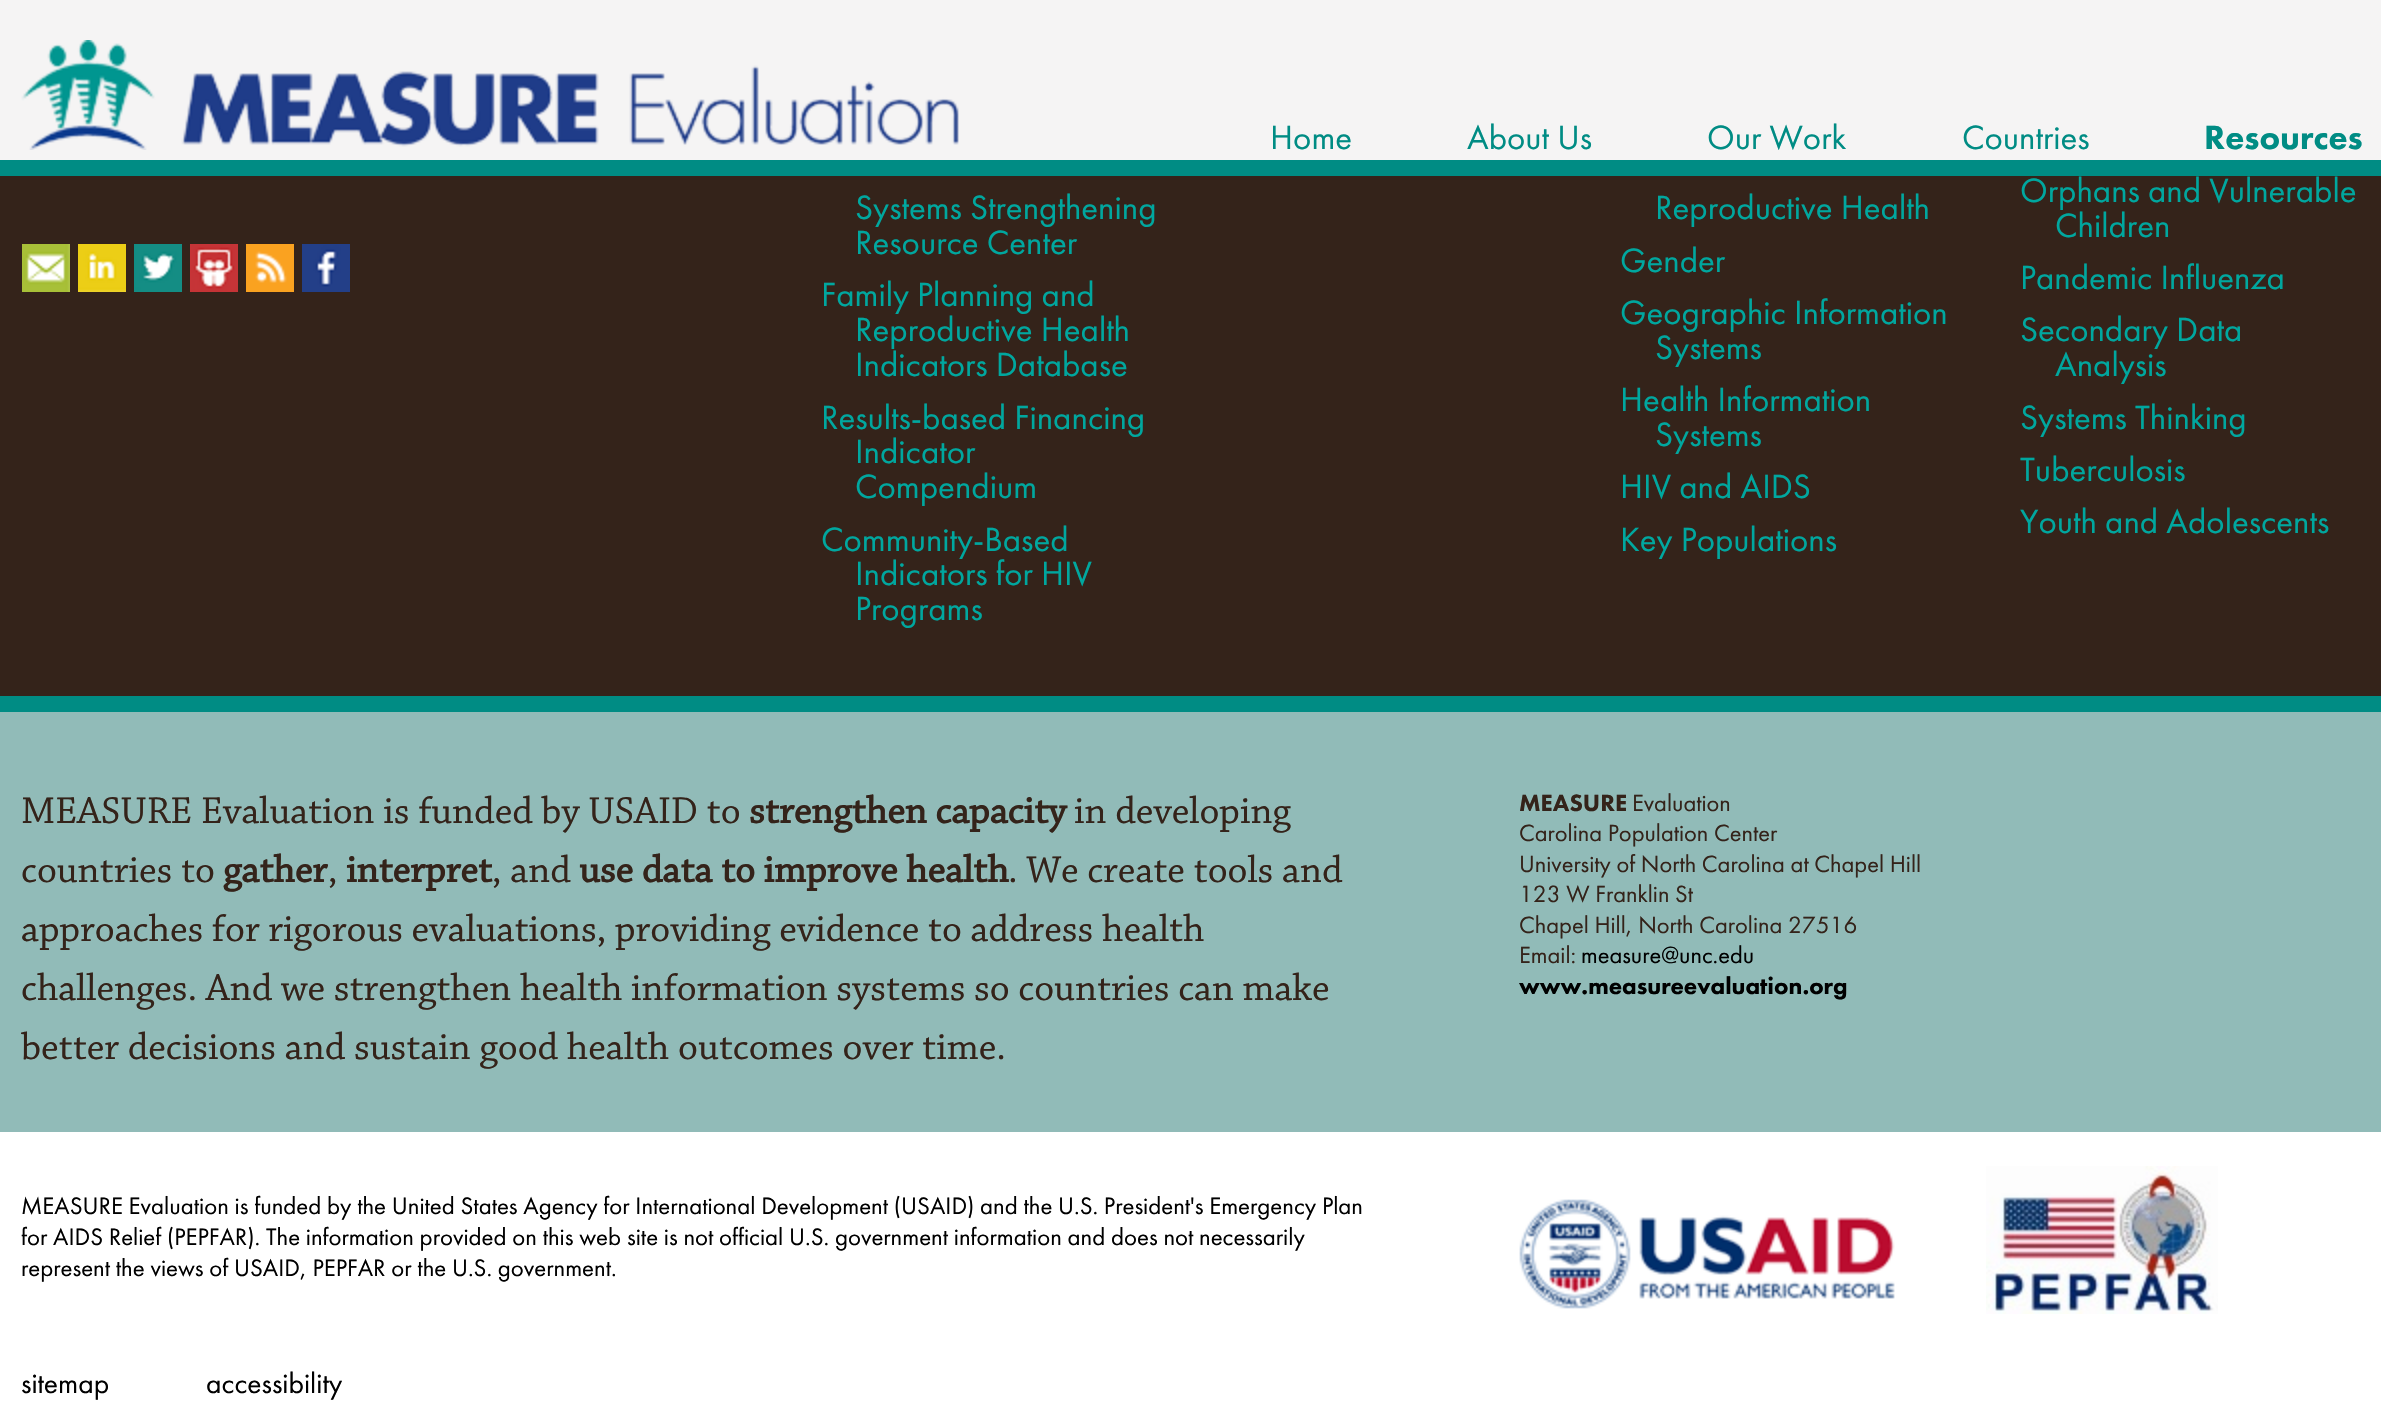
#include "include/core/SkBlurTypes.h"
#include "include/core/SkCanvas.h"
#include "include/core/SkData.h"
#include "include/core/SkFont.h"
#include "include/core/SkFontMgr.h"
#include "include/core/SkImage.h"
#include "include/core/SkMaskFilter.h"
#include "include/core/SkPaint.h"
#include "include/core/SkPathBuilder.h"
#include "include/core/SkTextBlob.h"
#include "include/effects/SkDashPathEffect.h"
#include "include/effects/SkGradientShader.h"
#include "include/utils/SkParsePath.h"

extern sk_sp<SkFontMgr> fontMgr;

void draw(SkCanvas* canvas) {
  SkPaint p;
  p.setAntiAlias(true);
  auto spacedText = [&](const char* s, float x, float y, const SkFont& font, const SkPaint& ink, float letter, float word) {
    std::vector<SkGlyphID> glyphs(font.countText(s, strlen(s), SkTextEncoding::kUTF8));
    std::vector<float> xs(glyphs.size());
    font.textToGlyphs(s, strlen(s), SkTextEncoding::kUTF8, glyphs);
    font.getXPos(glyphs, xs, x);
    float extra = 0;
    for (size_t i = 0; i < glyphs.size(); i++) {
      xs[i] += extra;
      extra += letter + word * (glyphs[i] == font.unicharToGlyph(' '));
    }
    canvas->drawTextBlob(SkTextBlob::MakeFromPosHGlyphs(glyphs, xs, y, font), 0, 0, ink);
  };
  canvas->clear(SK_ColorWHITE);
  p.setColor(SkColorSetRGB(52, 35, 26));
  canvas->drawRect(SkRect::MakeLTRB(0, 0, 2381, 696), p);
  p.setColor(SkColorSetARGB(242, 255, 255, 255));
  canvas->drawRect(SkRect::MakeLTRB(0, 0, 2381, 160), p);
  p.setColor(SkColorSetRGB(0, 140, 132));
  canvas->drawRect(SkRect::MakeLTRB(0, 160, 2381, 176), p);
  canvas->drawImageRect(SkImages::DeferredFromEncodedData(SkData::MakeFromFileName("images/1.png")), SkRect::MakeLTRB(21, 40, 959, 150), SkSamplingOptions());
  canvas->drawRect(SkRect::MakeLTRB(0, 696, 2381, 712), p);
  canvas->drawImageRect(SkImages::DeferredFromEncodedData(SkData::MakeFromFileName("images/2.png")), SkRect::MakeLTRB(22, 244, 70, 292), SkSamplingOptions());
  canvas->drawImageRect(SkImages::DeferredFromEncodedData(SkData::MakeFromFileName("images/3.png")), SkRect::MakeLTRB(78, 244, 126, 292), SkSamplingOptions());
  canvas->drawImageRect(SkImages::DeferredFromEncodedData(SkData::MakeFromFileName("images/4.png")), SkRect::MakeLTRB(134, 244, 182, 292), SkSamplingOptions());
  canvas->drawImageRect(SkImages::DeferredFromEncodedData(SkData::MakeFromFileName("images/5.png")), SkRect::MakeLTRB(190, 244, 238, 292), SkSamplingOptions());
  canvas->drawImageRect(SkImages::DeferredFromEncodedData(SkData::MakeFromFileName("images/6.png")), SkRect::MakeLTRB(246, 244, 294, 292), SkSamplingOptions());
  canvas->drawImageRect(SkImages::DeferredFromEncodedData(SkData::MakeFromFileName("images/7.png")), SkRect::MakeLTRB(302, 244, 350, 292), SkSamplingOptions());
  p.setColor(SkColorSetRGB(145, 187, 184));
  canvas->drawRect(SkRect::MakeLTRB(0, 712, 2381, 1132), p);
  canvas->drawImageRect(SkImages::DeferredFromEncodedData(SkData::MakeFromFileName("images/8.png")), SkRect::MakeLTRB(1519, 1199, 1895, 1309), SkSamplingOptions());
  canvas->drawImageRect(SkImages::DeferredFromEncodedData(SkData::MakeFromFileName("images/9.png")), SkRect::MakeLTRB(1986, 1166, 2218, 1314), SkSamplingOptions());
  SkFont font1(fontMgr->matchFamilyStyle("Futura PT", SkFontStyle::Normal()), 34.9f);
  font1.setSubpixel(true);
  p.setColor(SkColorSetRGB(0, 140, 132));
  canvas->drawString("Home", 1270, 149, font1, p);
  canvas->drawString("About Us", 1467, 149, font1, p);
  canvas->drawString("Our Work", 1707, 149, font1, p);
  canvas->drawString("Countries", 1962, 149, font1, p);
  SkFont font2(fontMgr->matchFamilyStyle("Futura PT", SkFontStyle(900, SkFontStyle::kNormal_Width, SkFontStyle::kUpright_Slant)), 34.9f);
  font2.setSubpixel(true);
  canvas->drawString("Resources", 2204, 149, font2, p);
  p.setColor(SkColorSetRGB(0, 167, 159));
  canvas->drawString("Systems Strengthening", 855, 219, font1, p);
  canvas->drawString("Resource Center", 855, 254, font1, p);
  canvas->drawString("Family Planning and", 821, 306, font1, p);
  canvas->drawString("Reproductive Health", 855, 341, font1, p);
  canvas->drawString("Indicators Database", 855, 376, font1, p);
  canvas->drawString("Results-based Financing", 821, 429, font1, p);
  canvas->drawString("Indicator", 855, 463, font1, p);
  canvas->drawString("Compendium", 855, 498, font1, p);
  canvas->drawString("Community-Based", 821, 551, font1, p);
  canvas->drawString("Indicators for HIV", 855, 585, font1, p);
  canvas->drawString("Programs", 855, 620, font1, p);
  canvas->drawString("Reproductive Health", 1655, 219, font1, p);
  canvas->drawString("Gender", 1620, 272, font1, p);
  canvas->drawString("Geographic Information", 1620, 324, font1, p);
  canvas->drawString("Systems", 1655, 359, font1, p);
  canvas->drawString("Health Information", 1620, 411, font1, p);
  canvas->drawString("Systems", 1655, 446, font1, p);
  canvas->drawString("HIV and AIDS", 1620, 498, font1, p);
  canvas->drawString("Key Populations", 1620, 551, font1, p);
  canvas->drawString("Orphans and Vulnerable", 2020, 202, font1, p);
  canvas->drawString("Children", 2055, 237, font1, p);
  canvas->drawString("Pandemic Influenza", 2020, 289, font1, p);
  canvas->drawString("Secondary Data", 2020, 341, font1, p);
  canvas->drawString("Analysis", 2055, 376, font1, p);
  canvas->drawString("Systems Thinking", 2020, 429, font1, p);
  canvas->drawString("Tuberculosis", 2020, 481, font1, p);
  canvas->drawString("Youth and Adolescents", 2020, 533, font1, p);
  SkFont font3(fontMgr->matchFamilyStyle("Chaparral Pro", SkFontStyle::Normal()), 39.4f);
  font3.setSubpixel(true);
  p.setColor(SkColorSetRGB(52, 35, 26));
  canvas->drawString("MEASURE Evaluation is funded by USAID to", 21, 823, font3, p);
  SkFont font4(fontMgr->matchFamilyStyle("Chaparral Pro", SkFontStyle::Bold()), 39.4f);
  font4.setSubpixel(true);
  canvas->drawString("strengthen capacity", 749, 823, font4, p);
  canvas->drawString("in developing", 1074, 823, font3, p);
  canvas->drawString("countries to", 21, 882, font3, p);
  canvas->drawString("gather", 223, 882, font4, p);
  canvas->drawString(",", 328, 882, font3, p);
  canvas->drawString("interpret", 346, 882, font4, p);
  canvas->drawString(", and", 492, 882, font3, p);
  canvas->drawString("use data to improve health", 579, 882, font4, p);
  canvas->drawString(". We create tools and", 1008, 882, font3, p);
  spacedText("approaches for rigorous evaluations, providing evidence to address", 21, 941, font3, p, 0, -0.1f);
  canvas->drawString("health", 1102, 941, font3, p);
  spacedText("challenges. And we strengthen health information systems so countries can make", 21, 1000, font3, p, 0, -0.1f);
  canvas->drawString("better decisions and sustain good health outcomes over time.", 21, 1059, font3, p);
  SkFont font5(fontMgr->matchFamilyStyle("Futura PT", SkFontStyle(900, SkFontStyle::kNormal_Width, SkFontStyle::kUpright_Slant)), 24.4f);
  font5.setSubpixel(true);
  canvas->drawString("MEASURE", 1519, 811, font5, p);
  SkFont font6(fontMgr->matchFamilyStyle("Futura PT", SkFontStyle::Normal()), 24.4f);
  font6.setSubpixel(true);
  canvas->drawString("Evaluation", 1632, 811, font6, p);
  canvas->drawString("Carolina Population Center", 1519, 841, font6, p);
  canvas->drawString("University of North Carolina at Chapel Hill", 1519, 872, font6, p);
  canvas->drawString("123 W Franklin St", 1519, 902, font6, p);
  canvas->drawString("Chapel Hill, North Carolina 27516", 1519, 933, font6, p);
  canvas->drawString("Email:", 1519, 963, font6, p);
  p.setColor(SK_ColorBLACK);
  canvas->drawString("measure@unc.edu", 1581, 963, font6, p);
  canvas->drawString("www.measureevaluation.org", 1519, 994, font5, p);
  SkFont font7(fontMgr->matchFamilyStyle("Futura PT", SkFontStyle::Normal()), 24.75f);
  font7.setSubpixel(true);
  canvas->drawString("MEASURE Evaluation is funded by the United States Agency for International Development (USAID) and the", 21, 1214, font7, p);
  canvas->drawString("U.S. President's Emergency Plan", 1058, 1214, font7, p);
  canvas->drawString("for AIDS Relief (PEPFAR). The information provided on this web", 21, 1245, font7, p);
  canvas->drawString("site is not official U.S. government information and does not necessarily", 627, 1245, font7, p);
  canvas->drawString("represent the views of USAID, PEPFAR or the U.S. government.", 21, 1276, font7, p);
  SkFont font8(fontMgr->matchFamilyStyle("Futura PT", SkFontStyle::Normal()), 29.5f);
  font8.setSubpixel(true);
  canvas->drawString("sitemap", 21, 1393, font8, p);
  canvas->drawString("accessibility", 206, 1393, font8, p);
}
